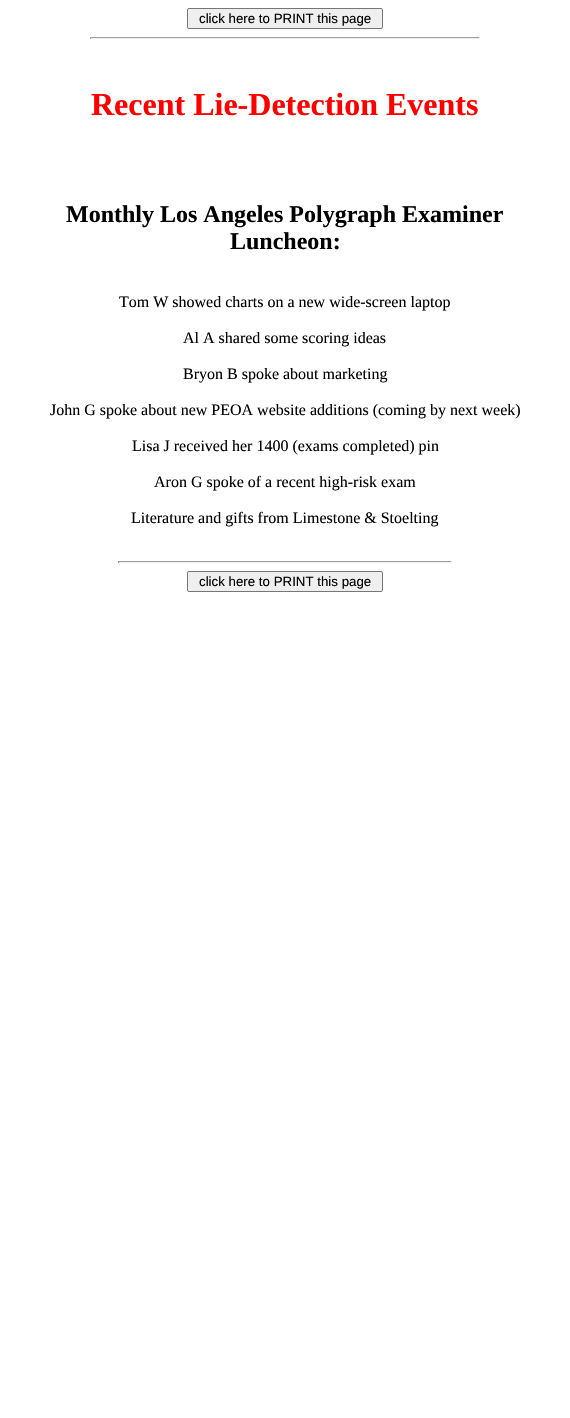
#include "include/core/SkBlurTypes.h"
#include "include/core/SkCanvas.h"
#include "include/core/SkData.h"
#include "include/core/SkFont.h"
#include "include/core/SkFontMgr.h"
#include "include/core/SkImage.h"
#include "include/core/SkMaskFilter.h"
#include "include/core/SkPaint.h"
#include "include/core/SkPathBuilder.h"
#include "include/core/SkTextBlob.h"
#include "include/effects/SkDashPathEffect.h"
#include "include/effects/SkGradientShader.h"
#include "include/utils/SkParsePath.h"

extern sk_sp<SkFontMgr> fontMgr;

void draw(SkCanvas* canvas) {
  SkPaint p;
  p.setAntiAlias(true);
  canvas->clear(SK_ColorWHITE);
  p.setColor(SkColorSetRGB(239, 239, 239));
  canvas->drawRoundRect(SkRect::MakeLTRB(187.5f, 8.5f, 382.5f, 28.5f), 1.5f, 1.5f, p);
  p.setStyle(SkPaint::kStroke_Style);
  p.setStrokeWidth(1);
  p.setColor(SkColorSetRGB(118, 118, 118));
  canvas->drawRoundRect(SkRect::MakeLTRB(187.5f, 8.5f, 382.5f, 28.5f), 1.5f, 1.5f, p);
  p.setStyle(SkPaint::kFill_Style);
  p.setColor(SkColorSetRGB(159, 159, 159));
  canvas->drawRect(SkRect::MakeLTRB(90, 37, 480, 38), p);
  p.setColor(SkColorSetRGB(238, 238, 238));
  canvas->drawRect(SkRect::MakeLTRB(479, 37, 480, 39), p);
  canvas->drawRect(SkRect::MakeLTRB(90, 38, 480, 39), p);
  p.setColor(SkColorSetRGB(159, 159, 159));
  canvas->drawRect(SkRect::MakeLTRB(90, 37, 91, 39), p);
  canvas->drawRect(SkRect::MakeLTRB(118, 561, 452, 562), p);
  p.setColor(SkColorSetRGB(238, 238, 238));
  canvas->drawRect(SkRect::MakeLTRB(451, 561, 452, 563), p);
  canvas->drawRect(SkRect::MakeLTRB(118, 562, 452, 563), p);
  p.setColor(SkColorSetRGB(159, 159, 159));
  canvas->drawRect(SkRect::MakeLTRB(118, 561, 119, 563), p);
  p.setColor(SkColorSetRGB(239, 239, 239));
  canvas->drawRoundRect(SkRect::MakeLTRB(187.5f, 571.5f, 382.5f, 591.5f), 1.5f, 1.5f, p);
  p.setStyle(SkPaint::kStroke_Style);
  p.setColor(SkColorSetRGB(118, 118, 118));
  canvas->drawRoundRect(SkRect::MakeLTRB(187.5f, 571.5f, 382.5f, 591.5f), 1.5f, 1.5f, p);
  SkFont font1(fontMgr->matchFamilyStyle("Liberation Sans", SkFontStyle::Normal()), 13.3f);
  font1.setSubpixel(true);
  p.setStyle(SkPaint::kFill_Style);
  p.setColor(SK_ColorBLACK);
  canvas->drawString("click here to PRINT this page", 199, 23, font1, p);
  SkFont font2(fontMgr->matchFamilyStyle("Liberation Serif", SkFontStyle::Bold()), 32);
  font2.setSubpixel(true);
  p.setColor(SkColorSetRGB(255, 0, 0));
  canvas->drawString("Recent Lie-Detection Events", 91, 115, font2, p);
  SkFont font3(fontMgr->matchFamilyStyle("Liberation Serif", SkFontStyle::Bold()), 24);
  font3.setSubpixel(true);
  p.setColor(SK_ColorBLACK);
  canvas->drawString("Monthly Los Angeles Polygraph Examiner", 66, 222, font3, p);
  canvas->drawString("Luncheon:", 230, 249, font3, p);
  SkFont font4(fontMgr->matchFamilyStyle("Liberation Serif", SkFontStyle::Normal()), 16);
  font4.setSubpixel(true);
  canvas->drawString("Tom W showed charts on a new wide-screen laptop", 119, 307, font4, p);
  canvas->drawString("Al A shared some scoring ideas", 183, 343, font4, p);
  canvas->drawString("Bryon B spoke about marketing", 183, 379, font4, p);
  canvas->drawString("John G spoke about new PEOA website additions (coming by next week)", 50, 415, font4, p);
  canvas->drawString("Lisa J received her 1400 (exams completed) pin", 132, 451, font4, p);
  canvas->drawString("Aron G spoke of a recent high-risk exam", 154, 487, font4, p);
  canvas->drawString("Literature and gifts from Limestone & Stoelting", 131, 523, font4, p);
  canvas->drawString("click here to PRINT this page", 199, 586, font1, p);
}
